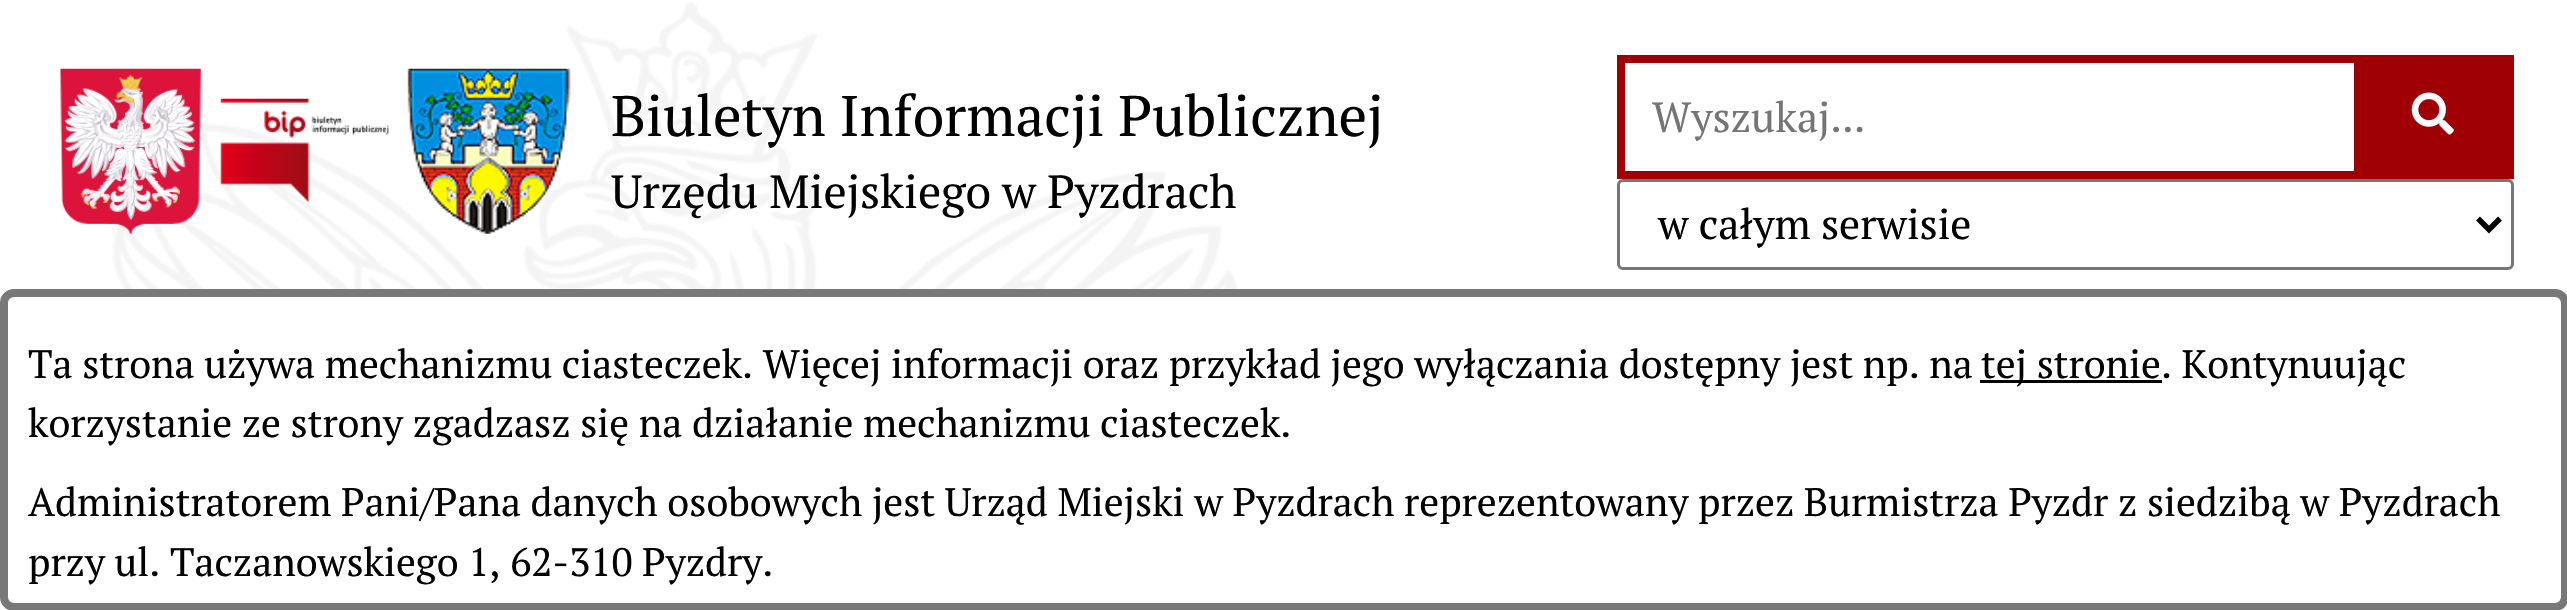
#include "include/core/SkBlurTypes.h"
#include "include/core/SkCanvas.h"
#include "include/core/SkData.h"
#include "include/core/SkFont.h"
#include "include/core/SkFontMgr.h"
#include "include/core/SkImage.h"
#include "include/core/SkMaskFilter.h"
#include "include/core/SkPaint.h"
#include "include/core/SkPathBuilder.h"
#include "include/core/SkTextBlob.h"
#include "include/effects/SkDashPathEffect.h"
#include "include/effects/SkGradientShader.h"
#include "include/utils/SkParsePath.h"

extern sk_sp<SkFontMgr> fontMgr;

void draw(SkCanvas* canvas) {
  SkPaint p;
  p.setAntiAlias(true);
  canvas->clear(SK_ColorWHITE);
  canvas->drawImageRect(SkImages::DeferredFromEncodedData(SkData::MakeFromFileName("images/1.png")), SkRect::MakeLTRB(112, 2, 1238, 289), SkSamplingOptions());
  canvas->drawImageRect(SkImages::DeferredFromEncodedData(SkData::MakeFromFileName("images/2.png")), SkRect::MakeLTRB(60, 68, 201, 234), SkSamplingOptions());
  canvas->drawImageRect(SkImages::DeferredFromEncodedData(SkData::MakeFromFileName("images/3.png")), SkRect::MakeLTRB(220, 98, 389, 203), SkSamplingOptions());
  canvas->drawImageRect(SkImages::DeferredFromEncodedData(SkData::MakeFromFileName("images/4.png")), SkRect::MakeLTRB(407, 68, 571, 234), SkSamplingOptions());
  p.setStyle(SkPaint::kStroke_Style);
  p.setStrokeWidth(8);
  p.setColor(SkColorSetRGB(158, 0, 5));
  canvas->drawRect(SkRect::MakeLTRB(1621, 59, 2358, 175), p);
  p.setStyle(SkPaint::kFill_Style);
  canvas->drawRect(SkRect::MakeLTRB(2362, 55, 2514, 179), p);
  canvas->drawImageRect(SkImages::DeferredFromEncodedData(SkData::MakeFromFileName("images/5.png")), SkRect::MakeLTRB(2411, 92, 2454, 135), SkSamplingOptions());
  p.setStyle(SkPaint::kStroke_Style);
  p.setStrokeWidth(3);
  p.setColor(SkColorSetRGB(118, 118, 118));
  canvas->drawRoundRect(SkRect::MakeLTRB(1618.5f, 180.5f, 2512.5f, 268.5f), 4.5f, 4.5f, p);
  p.setStrokeWidth(5.5f);
  p.setColor(SK_ColorBLACK);
  canvas->drawPath(SkPathBuilder().moveTo(2478, 218.5f).lineTo(2489, 229.5f).lineTo(2500, 218.5f).detach(), p);
  p.setStrokeWidth(8);
  p.setColor(SkColorSetRGB(120, 120, 120));
  canvas->drawRoundRect(SkRect::MakeLTRB(4, 293, 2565, 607), 10, 10, p);
  p.setStyle(SkPaint::kFill_Style);
  p.setColor(SK_ColorBLACK);
  canvas->drawRect(SkRect::MakeLTRB(1980, 380, 2162, 383), p);
  SkFont font1(fontMgr->matchFamilyStyle("PT Serif", SkFontStyle::Normal()), 57);
  font1.setSubpixel(true);
  canvas->drawString("Biuletyn Informacji Publicznej", 611, 136, font1, p);
  SkFont font2(fontMgr->matchFamilyStyle("PT Serif", SkFontStyle::Normal()), 46.3f);
  font2.setSubpixel(true);
  canvas->drawString("Urzędu Miejskiego w Pyzdrach", 611, 208, font2, p);
  SkFont font3(fontMgr->matchFamilyStyle("PT Serif", SkFontStyle::Normal()), 42);
  font3.setSubpixel(true);
  p.setColor(SkColorSetRGB(117, 117, 117));
  canvas->drawString("Wyszukaj...", 1652, 132, font3, p);
  p.setColor(SK_ColorBLACK);
  canvas->drawString("w całym serwisie", 1658, 239, font3, p);
  SkFont font4(fontMgr->matchFamilyStyle("PT Serif", SkFontStyle::Normal()), 39.6f);
  font4.setSubpixel(true);
  canvas->drawString("Ta strona używa mechanizmu ciasteczek. Więcej informacji oraz przykład jego wyłączania dostępny jest np. na", 28, 378, font4, p);
  canvas->drawString("tej stronie. Kontynuując", 1981, 378, font4, p);
  canvas->drawString("korzystanie ze strony zgadzasz się na działanie mechanizmu ciasteczek.", 28, 437, font4, p);
  canvas->drawString("Administratorem Pani/Pana danych osobowych jest Urząd Miejski w Pyzdrach reprezentowany przez Burmistrza Pyzdr z siedzibą w Pyzdrach", 28, 516, font4, p);
  canvas->drawString("przy ul. Taczanowskiego 1, 62-310 Pyzdry.", 28, 576, font4, p);
}
